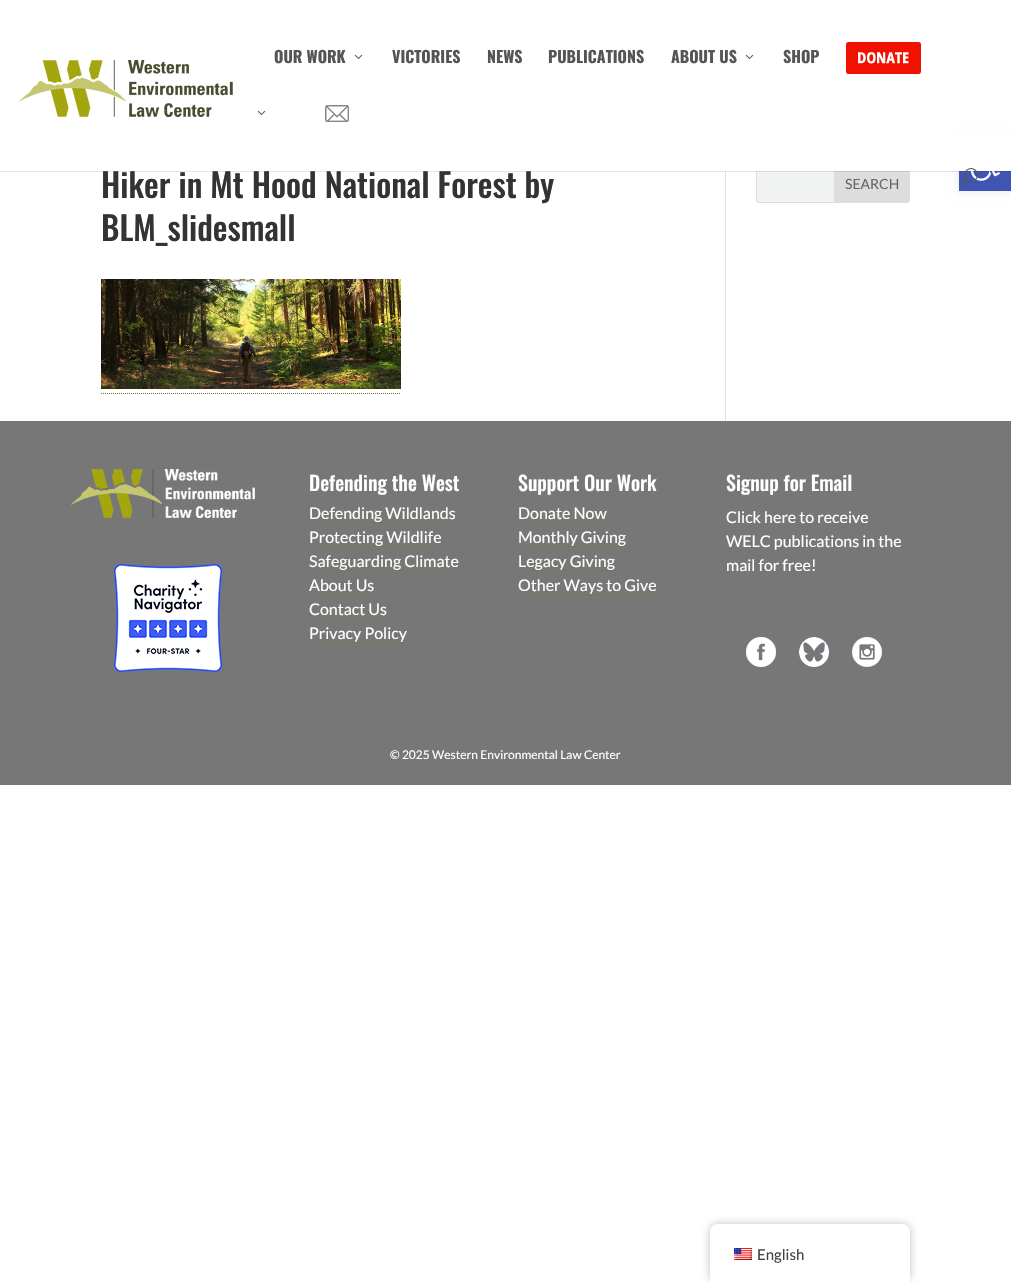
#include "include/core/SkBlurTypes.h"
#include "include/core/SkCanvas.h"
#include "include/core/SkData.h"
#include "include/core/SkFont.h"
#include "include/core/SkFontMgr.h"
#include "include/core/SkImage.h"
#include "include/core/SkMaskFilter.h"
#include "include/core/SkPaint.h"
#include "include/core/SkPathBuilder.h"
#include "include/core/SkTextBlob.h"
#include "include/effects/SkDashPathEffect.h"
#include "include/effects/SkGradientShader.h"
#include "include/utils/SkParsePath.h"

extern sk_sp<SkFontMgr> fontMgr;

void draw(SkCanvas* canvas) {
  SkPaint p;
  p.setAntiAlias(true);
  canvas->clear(SK_ColorWHITE);
  p.setColor(SkColorSetRGB(241, 243, 242));
  canvas->drawRoundRect(SkRect::MakeLTRB(756.5f, 163.5f, 909.5f, 202.5f), 2.5f, 2.5f, p);
  p.setStyle(SkPaint::kStroke_Style);
  p.setStrokeWidth(1);
  p.setColor(SkColorSetRGB(221, 221, 221));
  canvas->drawRoundRect(SkRect::MakeLTRB(756.5f, 163.5f, 909.5f, 202.5f), 2.5f, 2.5f, p);
  p.setStyle(SkPaint::kFill_Style);
  canvas->drawRoundRect(SkRect::MakeLTRB(834.5f, 163.5f, 909.5f, 202.5f), 2.5f, 2.5f, p);
  p.setStyle(SkPaint::kStroke_Style);
  canvas->drawRoundRect(SkRect::MakeLTRB(834.5f, 163.5f, 909.5f, 202.5f), 2.5f, 2.5f, p);
  p.setStyle(SkPaint::kFill_Style);
  p.setColor(SkColorSetRGB(226, 226, 226));
  canvas->drawRect(SkRect::MakeLTRB(725, 171, 726, 421), p);
  p.setColor(SkColorSetARGB(26, 0, 0, 0));
  p.setMaskFilter(SkMaskFilter::MakeBlur(kNormal_SkBlurStyle, 5));
  canvas->drawRect(SkRect::MakeLTRB(959, 139, 1011, 191), p);
  p.setMaskFilter(nullptr);
  p.setColor(SkColorSetRGB(64, 84, 178));
  canvas->drawRect(SkRect::MakeLTRB(959, 171, 1011, 191), p);
  canvas->drawImageRect(SkImages::DeferredFromEncodedData(SkData::MakeFromFileName("images/12.png")), SkRect::MakeLTRB(971, 171, 1000, 181), SkSamplingOptions());
  p.setColor(SkColorSetARGB(26, 0, 0, 0));
  canvas->drawRect(SkRect::MakeLTRB(0, 171, 1011, 172), p);
  p.setColor(SK_ColorWHITE);
  canvas->drawRect(SkRect::MakeLTRB(756, 133, 1011, 171), p);
  canvas->drawImageRect(SkImages::DeferredFromEncodedData(SkData::MakeFromFileName("images/1.png")), SkRect::MakeLTRB(354, 54, 363, 59), SkSamplingOptions());
  canvas->drawImageRect(SkImages::DeferredFromEncodedData(SkData::MakeFromFileName("images/1.png")), SkRect::MakeLTRB(745, 54, 754, 59), SkSamplingOptions());
  canvas->drawImageRect(SkImages::DeferredFromEncodedData(SkData::MakeFromFileName("images/2.png")), SkRect::MakeLTRB(846, 42, 921, 74), SkSamplingOptions());
  canvas->drawImageRect(SkImages::DeferredFromEncodedData(SkData::MakeFromFileName("images/1.png")), SkRect::MakeLTRB(257, 110, 266, 115), SkSamplingOptions());
  canvas->drawImageRect(SkImages::DeferredFromEncodedData(SkData::MakeFromFileName("images/3.png")), SkRect::MakeLTRB(325, 105, 349, 122), SkSamplingOptions());
  canvas->drawImageRect(SkImages::DeferredFromEncodedData(SkData::MakeFromFileName("images/4.png")), SkRect::MakeLTRB(961, 168, 978, 185), SkSamplingOptions());
  canvas->drawImageRect(SkImages::DeferredFromEncodedData(SkData::MakeFromFileName("images/5.png")), SkRect::MakeLTRB(19, 60, 233, 117), SkSamplingOptions());
  canvas->drawImageRect(SkImages::DeferredFromEncodedData(SkData::MakeFromFileName("images/6.png")), SkRect::MakeLTRB(101, 279, 401, 389), SkSamplingOptions());
  p.setStyle(SkPaint::kStroke_Style);
  p.setColor(SkColorSetRGB(119, 119, 49));
  p.setPathEffect(SkDashPathEffect::Make({{1, 1}}, 0));
  canvas->drawPath(SkPathBuilder().moveTo(101, 393.5f).lineTo(401, 393.5f).detach(), p);
  p.setPathEffect(nullptr);
  p.setStyle(SkPaint::kFill_Style);
  p.setColor(SkColorSetRGB(119, 119, 119));
  canvas->drawRect(SkRect::MakeLTRB(0, 421, 1011, 785), p);
  canvas->drawImageRect(SkImages::DeferredFromEncodedData(SkData::MakeFromFileName("images/7.png")), SkRect::MakeLTRB(71, 469, 255, 518), SkSamplingOptions());
  canvas->drawImageRect(SkImages::DeferredFromEncodedData(SkData::MakeFromFileName("images/8.png")), SkRect::MakeLTRB(114, 564, 222, 672), SkSamplingOptions());
  p.setStyle(SkPaint::kStroke_Style);
  p.setColor(SkColorSetRGB(119, 119, 49));
  p.setPathEffect(SkDashPathEffect::Make({{1, 1}}, 0));
  canvas->drawPath(SkPathBuilder().moveTo(309, 522.5f).lineTo(456, 522.5f).detach(), p);
  p.setPathEffect(nullptr);
  p.setPathEffect(SkDashPathEffect::Make({{1, 1}}, 0));
  canvas->drawPath(SkPathBuilder().moveTo(309, 546.5f).lineTo(442, 546.5f).detach(), p);
  p.setPathEffect(nullptr);
  p.setPathEffect(SkDashPathEffect::Make({{1, 1}}, 0));
  canvas->drawPath(SkPathBuilder().moveTo(309, 570.5f).lineTo(459, 570.5f).detach(), p);
  p.setPathEffect(nullptr);
  p.setPathEffect(SkDashPathEffect::Make({{1, 1}}, 0));
  canvas->drawPath(SkPathBuilder().moveTo(309, 594.5f).lineTo(375, 594.5f).detach(), p);
  p.setPathEffect(nullptr);
  p.setPathEffect(SkDashPathEffect::Make({{1, 1}}, 0));
  canvas->drawPath(SkPathBuilder().moveTo(309, 618.5f).lineTo(387, 618.5f).detach(), p);
  p.setPathEffect(nullptr);
  p.setPathEffect(SkDashPathEffect::Make({{1, 1}}, 0));
  canvas->drawPath(SkPathBuilder().moveTo(309, 642.5f).lineTo(407, 642.5f).detach(), p);
  p.setPathEffect(nullptr);
  p.setPathEffect(SkDashPathEffect::Make({{1, 1}}, 0));
  canvas->drawPath(SkPathBuilder().moveTo(518, 522.5f).lineTo(606, 522.5f).detach(), p);
  p.setPathEffect(nullptr);
  p.setPathEffect(SkDashPathEffect::Make({{1, 1}}, 0));
  canvas->drawPath(SkPathBuilder().moveTo(518, 546.5f).lineTo(626, 546.5f).detach(), p);
  p.setPathEffect(nullptr);
  p.setPathEffect(SkDashPathEffect::Make({{1, 1}}, 0));
  canvas->drawPath(SkPathBuilder().moveTo(518, 570.5f).lineTo(614, 570.5f).detach(), p);
  p.setPathEffect(nullptr);
  p.setPathEffect(SkDashPathEffect::Make({{1, 1}}, 0));
  canvas->drawPath(SkPathBuilder().moveTo(518, 594.5f).lineTo(656, 594.5f).detach(), p);
  p.setPathEffect(nullptr);
  canvas->drawImageRect(SkImages::DeferredFromEncodedData(SkData::MakeFromFileName("images/9.png")), SkRect::MakeLTRB(746, 637, 776, 667), SkSamplingOptions());
  canvas->drawImageRect(SkImages::DeferredFromEncodedData(SkData::MakeFromFileName("images/10.png")), SkRect::MakeLTRB(799, 637, 829, 667), SkSamplingOptions());
  canvas->drawImageRect(SkImages::DeferredFromEncodedData(SkData::MakeFromFileName("images/11.png")), SkRect::MakeLTRB(852, 637, 882, 667), SkSamplingOptions());
  p.setStyle(SkPaint::kFill_Style);
  p.setColor(SkColorSetARGB(64, 0, 0, 0));
  p.setMaskFilter(SkMaskFilter::MakeBlur(kNormal_SkBlurStyle, 4));
  canvas->drawRoundRect(SkRect::MakeLTRB(710, 1224, 910, 1282), 8, 8, p);
  p.setMaskFilter(nullptr);
  p.setColor(SK_ColorWHITE);
  canvas->drawPath(SkPathBuilder().moveTo(718, 1224).lineTo(902, 1224).cubicTo(906.5f, 1224, 910, 1227.5f, 910, 1232).lineTo(910, 1282).lineTo(710, 1282).lineTo(710, 1232).cubicTo(710, 1227.5f, 713.5f, 1224, 718, 1224).close().detach(), p);
  canvas->drawImageRect(SkImages::DeferredFromEncodedData(SkData::MakeFromFileName("images/13.png")), SkRect::MakeLTRB(734, 1248, 752, 1260), SkSamplingOptions());
  SkFont font1(fontMgr->matchFamilyStyle("Oswald", SkFontStyle::Bold()), 16);
  font1.setSubpixel(true);
  p.setColor(SkColorSetRGB(85, 85, 85));
  canvas->drawString("OUR WORK", 274, 63, font1, p);
  canvas->drawString("VICTORIES", 392, 63, font1, p);
  canvas->drawString("NEWS", 487, 63, font1, p);
  canvas->drawString("PUBLICATIONS", 548, 63, font1, p);
  canvas->drawString("ABOUT US", 671, 63, font1, p);
  canvas->drawString("SHOP", 783, 63, font1, p);
  SkFont font2(fontMgr->matchFamilyStyle("Oswald", SkFontStyle(500, SkFontStyle::kNormal_Width, SkFontStyle::kUpright_Slant)), 33);
  font2.setSubpixel(true);
  p.setColor(SkColorSetRGB(51, 51, 51));
  canvas->drawString("Hiker in Mt Hood National Forest by", 101, 198, font2, p);
  canvas->drawString("BLM_slidesmall", 101, 241, font2, p);
  SkFont font3(fontMgr->matchFamilyStyle("Lato", SkFontStyle::Normal()), 14);
  font3.setSubpixel(true);
  p.setColor(SkColorSetRGB(102, 102, 102));
  canvas->drawString("SEARCH", 845, 189, font3, p);
  SkFont font4(fontMgr->matchFamilyStyle("Oswald", SkFontStyle(500, SkFontStyle::kNormal_Width, SkFontStyle::kUpright_Slant)), 20);
  font4.setSubpixel(true);
  p.setColor(SK_ColorWHITE);
  canvas->drawString("Defending the West", 309, 491, font4, p);
  SkFont font5(fontMgr->matchFamilyStyle("Lato", SkFontStyle::Normal()), 16);
  font5.setSubpixel(true);
  canvas->drawString("Defending Wildlands", 309, 519, font5, p);
  canvas->drawString("Protecting Wildlife", 309, 543, font5, p);
  canvas->drawString("Safeguarding Climate", 309, 567, font5, p);
  canvas->drawString("About Us", 309, 591, font5, p);
  canvas->drawString("Contact Us", 309, 615, font5, p);
  canvas->drawString("Privacy Policy", 309, 639, font5, p);
  canvas->drawString("Support Our Work", 518, 491, font4, p);
  canvas->drawString("Donate Now", 518, 519, font5, p);
  canvas->drawString("Monthly Giving", 518, 543, font5, p);
  canvas->drawString("Legacy Giving", 518, 567, font5, p);
  canvas->drawString("Other Ways to Give", 518, 591, font5, p);
  canvas->drawString("Signup for Email", 726, 491, font4, p);
  canvas->drawString("Click here to receive", 726, 523, font5, p);
  canvas->drawString("WELC publications in the", 726, 547, font5, p);
  canvas->drawString("mail for free!", 726, 571, font5, p);
  SkFont font6(fontMgr->matchFamilyStyle("Lato", SkFontStyle::Normal()), 12);
  font6.setSubpixel(true);
  canvas->drawString("© 2025 Western Environmental Law Center", 390, 759, font6, p);
  SkFont font7(fontMgr->matchFamilyStyle("Lato", SkFontStyle::Normal()), 15);
  font7.setSubpixel(true);
  p.setColor(SkColorSetRGB(64, 64, 64));
  canvas->drawString("English", 757, 1260, font7, p);
}
